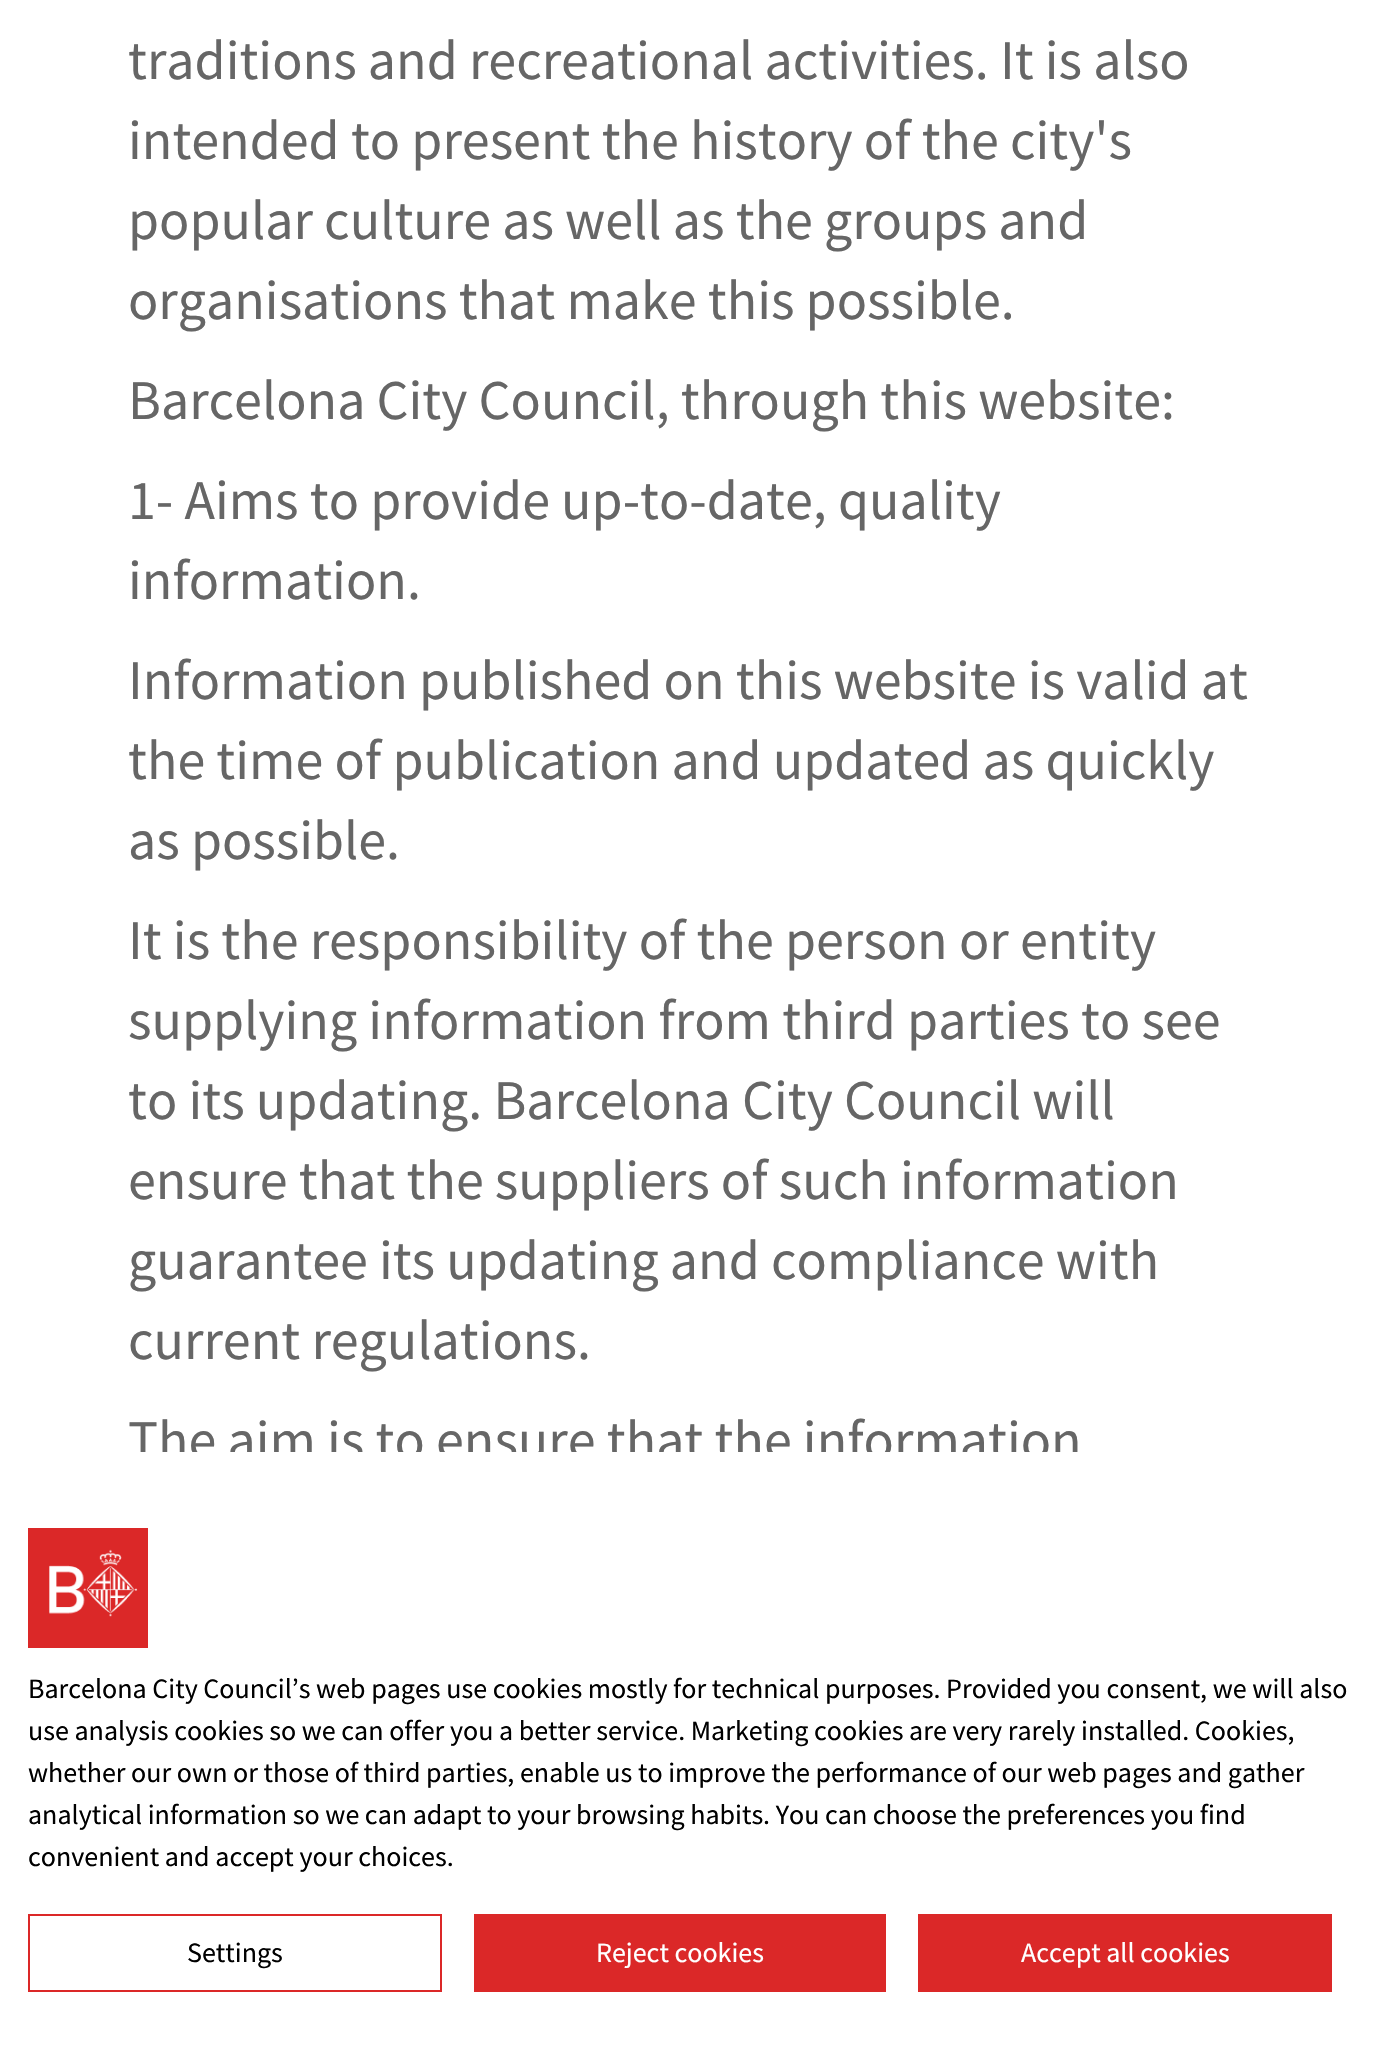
#include "include/core/SkBlurTypes.h"
#include "include/core/SkCanvas.h"
#include "include/core/SkData.h"
#include "include/core/SkFont.h"
#include "include/core/SkFontMgr.h"
#include "include/core/SkImage.h"
#include "include/core/SkMaskFilter.h"
#include "include/core/SkPaint.h"
#include "include/core/SkPathBuilder.h"
#include "include/core/SkTextBlob.h"
#include "include/effects/SkDashPathEffect.h"
#include "include/effects/SkGradientShader.h"
#include "include/utils/SkParsePath.h"

extern sk_sp<SkFontMgr> fontMgr;

void draw(SkCanvas* canvas) {
  SkPaint p;
  p.setAntiAlias(true);
  canvas->clear(SK_ColorWHITE);
  canvas->drawImageRect(SkImages::DeferredFromEncodedData(SkData::MakeFromFileName("images/1.png")), SkRect::MakeLTRB(28, 1528, 148, 1648), SkSamplingOptions());
  p.setStyle(SkPaint::kStroke_Style);
  p.setStrokeWidth(2);
  p.setColor(SkColorSetRGB(219, 40, 40));
  canvas->drawRect(SkRect::MakeLTRB(29, 1915, 441, 1991), p);
  p.setStyle(SkPaint::kFill_Style);
  canvas->drawRect(SkRect::MakeLTRB(474, 1914, 886, 1992), p);
  canvas->drawRect(SkRect::MakeLTRB(918, 1914, 1332, 1992), p);
  SkFont font1(fontMgr->matchFamilyStyle("Source Sans Pro", SkFontStyle::Normal()), 56);
  font1.setSubpixel(true);
  p.setColor(SkColorSetRGB(102, 102, 102));
  canvas->drawString("traditions and recreational activities. It is also", 128, 79, font1, p);
  canvas->drawString("intended to present the history of the city's", 128, 159, font1, p);
  canvas->drawString("popular culture as well as the groups and", 128, 239, font1, p);
  canvas->drawString("organisations that make this possible.", 128, 319, font1, p);
  canvas->drawString("Barcelona City Council, through this website:", 128, 419, font1, p);
  canvas->drawString("1- Aims to provide up-to-date, quality", 128, 519, font1, p);
  canvas->drawString("information.", 128, 599, font1, p);
  canvas->drawString("Information published on this website is valid at", 128, 699, font1, p);
  canvas->drawString("the time of publication and updated as quickly", 128, 779, font1, p);
  canvas->drawString("as possible.", 128, 859, font1, p);
  canvas->drawString("It is the responsibility of the person or entity", 128, 959, font1, p);
  canvas->drawString("supplying information from third parties to see", 128, 1039, font1, p);
  canvas->drawString("to its updating. Barcelona City Council will", 128, 1119, font1, p);
  canvas->drawString("ensure that the suppliers of such information", 128, 1199, font1, p);
  canvas->drawString("guarantee its updating and compliance with", 128, 1279, font1, p);
  canvas->drawString("current regulations.", 128, 1359, font1, p);
  canvas->drawString("The aim is to ensure that the information", 128, 1459, font1, p);
  p.setColor(SK_ColorWHITE);
  canvas->drawRect(SkRect::MakeLTRB(140, 1452, 1078, 1460), p);
  SkFont font2(fontMgr->matchFamilyStyle("Source Sans Pro", SkFontStyle::Normal()), 28);
  font2.setSubpixel(true);
  p.setColor(SK_ColorBLACK);
  canvas->drawString("Barcelona City Council’s web pages use cookies mostly for technical purposes. Provided you consent, we will also", 28, 1698, font2, p);
  canvas->drawString("use analysis cookies so we can offer you a better service. Marketing cookies are very rarely installed. Cookies,", 28, 1740, font2, p);
  canvas->drawString("whether our own or those of third parties, enable us to improve the performance of our web pages and gather", 28, 1782, font2, p);
  canvas->drawString("analytical information so we can adapt to your browsing habits. You can choose the preferences you find", 28, 1824, font2, p);
  canvas->drawString("convenient and accept your choices.", 28, 1866, font2, p);
  canvas->drawString("Settings", 187, 1962, font2, p);
  p.setColor(SK_ColorWHITE);
  canvas->drawString("Reject cookies", 596, 1962, font2, p);
  canvas->drawString("Accept all cookies", 1021, 1962, font2, p);
}
